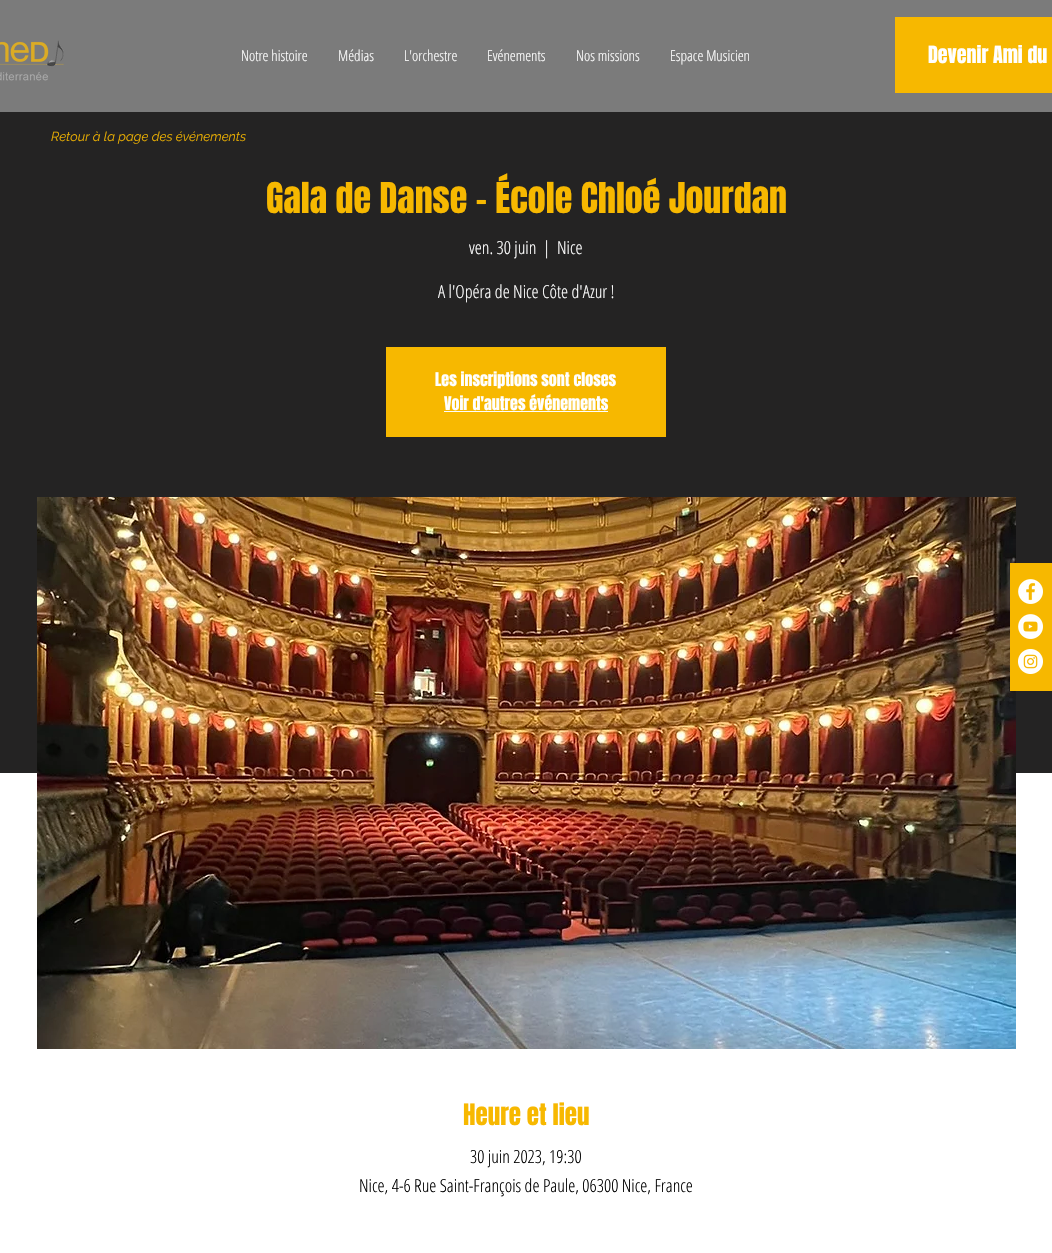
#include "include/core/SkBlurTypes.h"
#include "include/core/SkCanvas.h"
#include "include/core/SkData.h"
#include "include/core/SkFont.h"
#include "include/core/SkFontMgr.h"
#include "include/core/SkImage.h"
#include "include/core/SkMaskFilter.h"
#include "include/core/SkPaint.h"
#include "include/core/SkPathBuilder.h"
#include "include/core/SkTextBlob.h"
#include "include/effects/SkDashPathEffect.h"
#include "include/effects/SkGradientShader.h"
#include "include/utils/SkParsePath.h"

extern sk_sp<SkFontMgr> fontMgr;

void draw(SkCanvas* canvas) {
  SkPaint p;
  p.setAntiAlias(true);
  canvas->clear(SK_ColorWHITE);
  p.setColor(SkColorSetRGB(123, 123, 123));
  canvas->drawRect(SkRect::MakeLTRB(0, 0, 1052, 112), p);
  canvas->drawImageRect(SkImages::DeferredFromEncodedData(SkData::MakeFromFileName("images/1.png")), SkRect::MakeLTRB(0, 40, 64, 81), SkSamplingOptions());
  p.setColor(SkColorSetRGB(247, 184, 0));
  canvas->drawRect(SkRect::MakeLTRB(895, 17, 1052, 93), p);
  p.setColor(SkColorSetRGB(36, 35, 35));
  canvas->drawRect(SkRect::MakeLTRB(0, 112, 1052, 773), p);
  p.setColor(SkColorSetRGB(247, 184, 0));
  canvas->drawRect(SkRect::MakeLTRB(386, 347, 666, 437), p);
  p.setColor(SkColorSetRGB(254, 253, 253));
  canvas->drawRect(SkRect::MakeLTRB(444, 411, 608, 412), p);
  canvas->drawImageRect(SkImages::DeferredFromEncodedData(SkData::MakeFromFileName("images/2.png")), SkRect::MakeLTRB(37, 497, 1016, 1049), SkSamplingOptions());
  p.setColor(SkColorSetRGB(247, 184, 0));
  canvas->drawRect(SkRect::MakeLTRB(1010, 563, 1052, 691), p);
  canvas->drawImageRect(SkImages::DeferredFromEncodedData(SkData::MakeFromFileName("images/3.png")), SkRect::MakeLTRB(1018, 579, 1043, 604), SkSamplingOptions());
  canvas->drawImageRect(SkImages::DeferredFromEncodedData(SkData::MakeFromFileName("images/4.png")), SkRect::MakeLTRB(1018, 614, 1043, 639), SkSamplingOptions());
  canvas->drawImageRect(SkImages::DeferredFromEncodedData(SkData::MakeFromFileName("images/5.png")), SkRect::MakeLTRB(1018, 649, 1043, 674), SkSamplingOptions());
  SkFont font1(fontMgr->matchFamilyStyle("Open Sans Condensed", SkFontStyle(300, SkFontStyle::kNormal_Width, SkFontStyle::kUpright_Slant)), 15);
  font1.setSubpixel(true);
  p.setColor(SK_ColorWHITE);
  canvas->drawString("Notre histoire", 241, 61, font1, p);
  canvas->drawString("Médias", 338, 61, font1, p);
  canvas->drawString("L'orchestre", 404, 61, font1, p);
  canvas->drawString("Evénements", 487, 61, font1, p);
  canvas->drawString("Nos missions", 576, 61, font1, p);
  canvas->drawString("Espace Musicien", 670, 61, font1, p);
  SkFont font2(fontMgr->matchFamilyStyle("Anton", SkFontStyle::Normal()), 20);
  font2.setSubpixel(true);
  canvas->drawString("Devenir Ami du", 928, 63, font2, p);
  SkFont font3(fontMgr->matchFamilyStyle("Raleway", SkFontStyle::Italic()), 13);
  font3.setSubpixel(true);
  p.setColor(SkColorSetRGB(232, 173, 2));
  canvas->drawString("Retour à la page des événements", 51, 141, font3, p);
  SkFont font4(fontMgr->matchFamilyStyle("Anton", SkFontStyle::Normal()), 36);
  font4.setSubpixel(true);
  p.setColor(SkColorSetRGB(247, 184, 0));
  canvas->drawString("Gala de Danse - École Chloé Jourdan", 266, 213, font4, p);
  SkFont font5(fontMgr->matchFamilyStyle("Open Sans Condensed", SkFontStyle(300, SkFontStyle::kNormal_Width, SkFontStyle::kUpright_Slant)), 18);
  font5.setSubpixel(true);
  p.setColor(SK_ColorWHITE);
  canvas->drawString("ven. 30 juin", 469, 254, font5, p);
  canvas->drawString("|", 543, 254, font5, p);
  canvas->drawString("Nice", 557, 254, font5, p);
  canvas->drawString("A l'Opéra de Nice Côte d'Azur !", 438, 298, font5, p);
  SkFont font6(fontMgr->matchFamilyStyle("Anton", SkFontStyle::Normal()), 16);
  font6.setSubpixel(true);
  canvas->drawString("Les inscriptions sont closes", 435, 386, font6, p);
  canvas->drawString("Voir d'autres événements", 444, 410, font6, p);
  SkFont font7(fontMgr->matchFamilyStyle("Anton", SkFontStyle::Normal()), 25);
  font7.setSubpixel(true);
  p.setColor(SkColorSetRGB(247, 184, 0));
  canvas->drawString("Heure et lieu", 463, 1125, font7, p);
  p.setColor(SK_ColorBLACK);
  canvas->drawString("30 juin 2023, 19:30", 470, 1163, font5, p);
  canvas->drawString("Nice, 4-6 Rue Saint-François de Paule, 06300 Nice, France", 359, 1192, font5, p);
}
